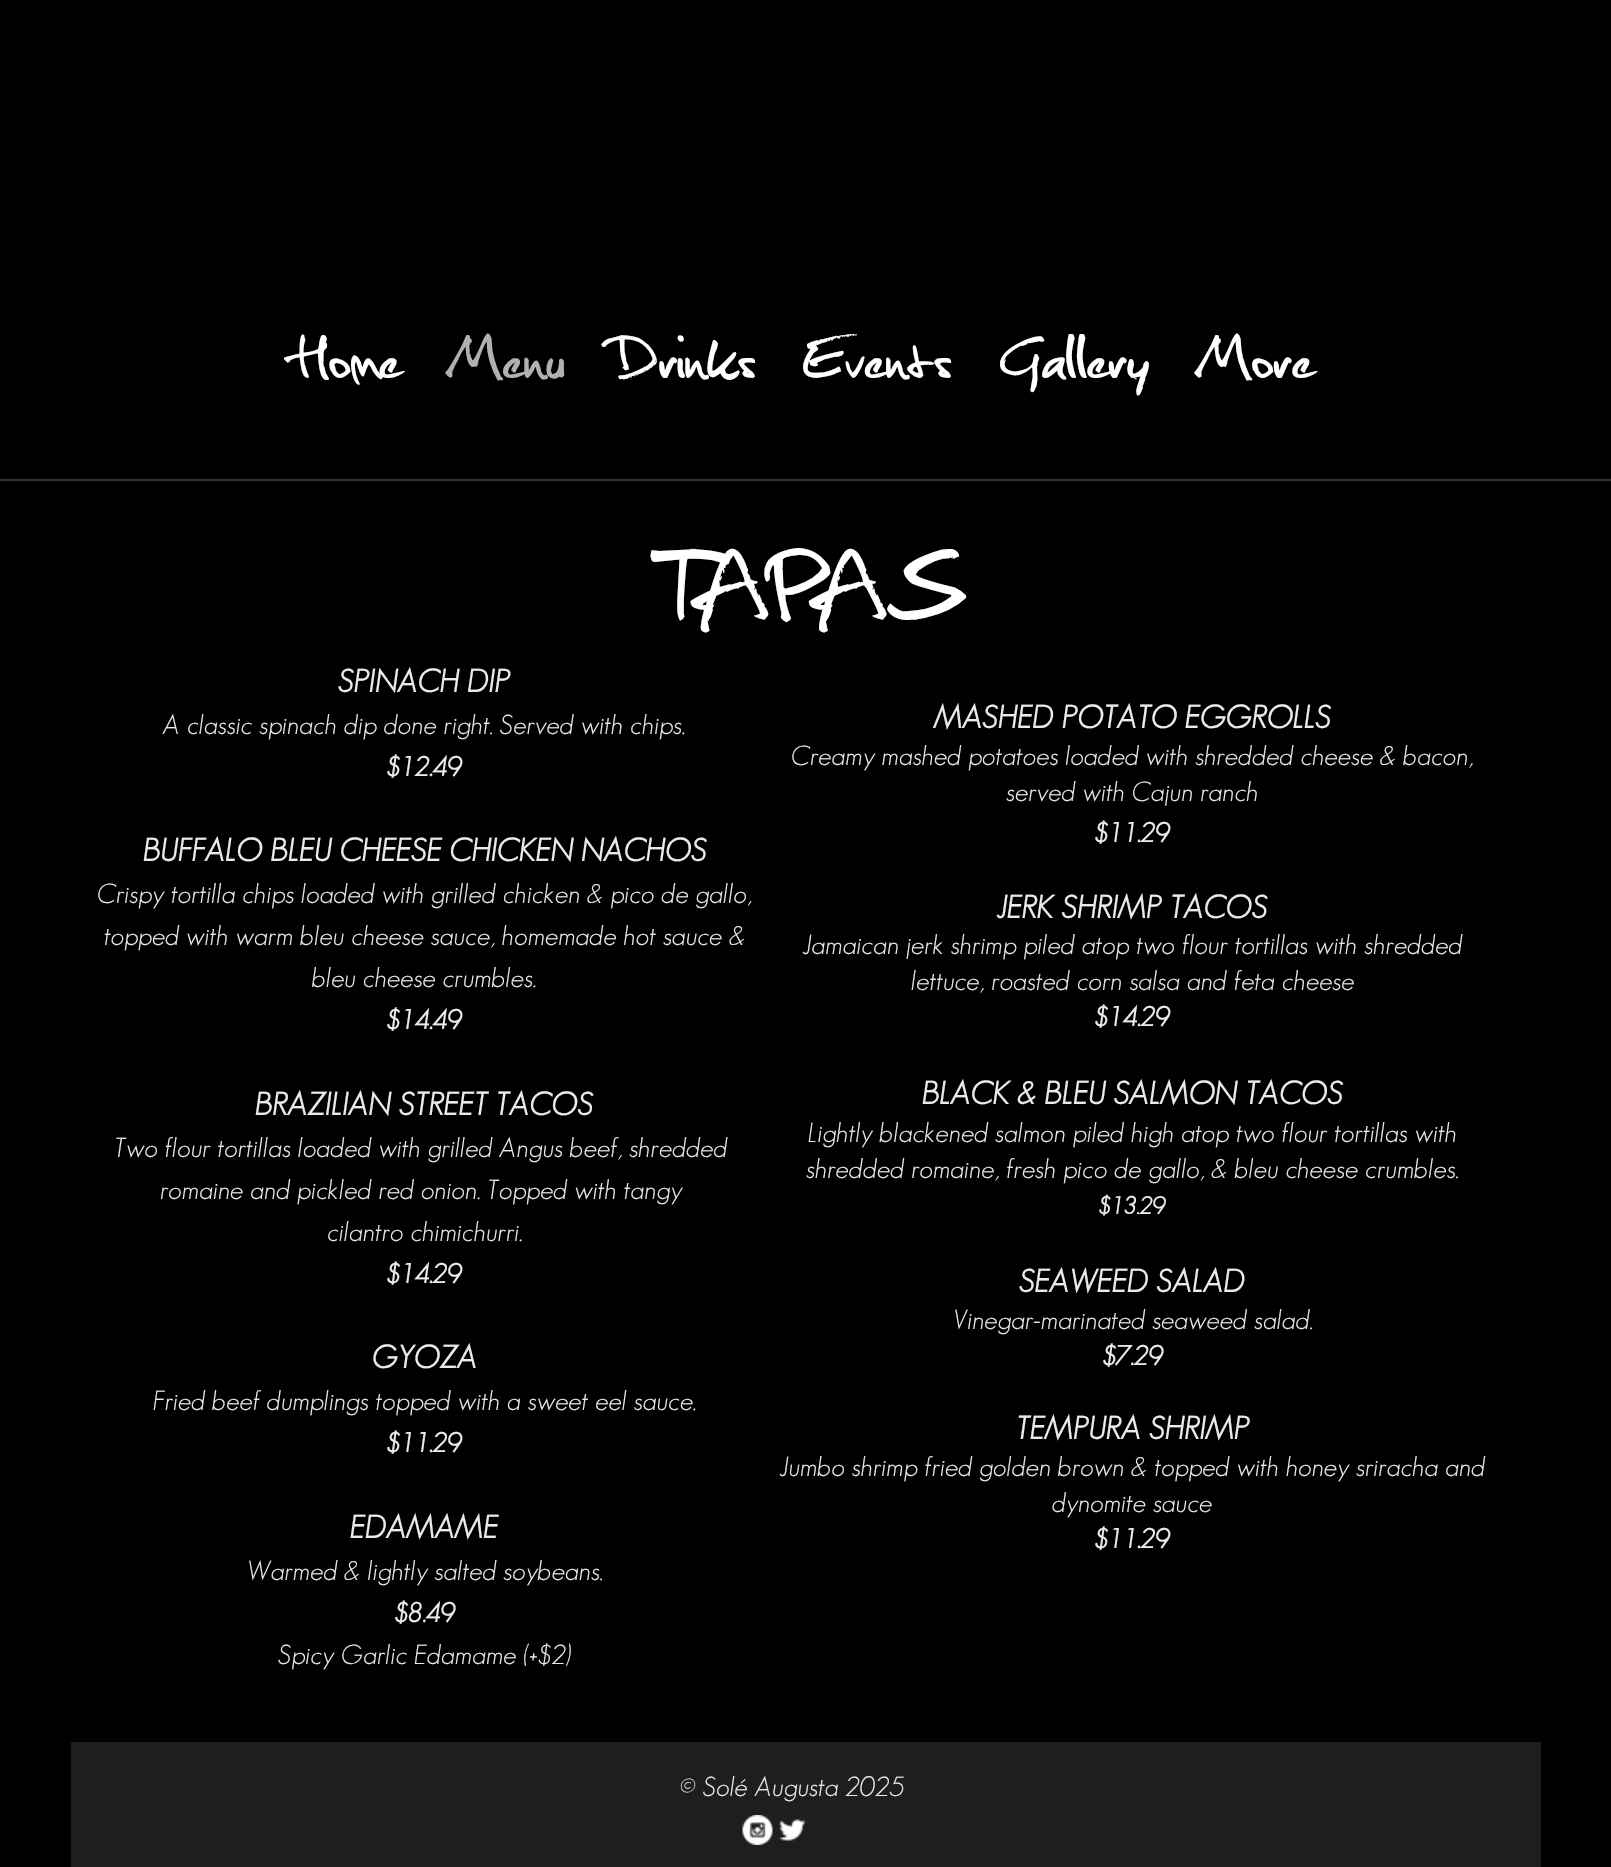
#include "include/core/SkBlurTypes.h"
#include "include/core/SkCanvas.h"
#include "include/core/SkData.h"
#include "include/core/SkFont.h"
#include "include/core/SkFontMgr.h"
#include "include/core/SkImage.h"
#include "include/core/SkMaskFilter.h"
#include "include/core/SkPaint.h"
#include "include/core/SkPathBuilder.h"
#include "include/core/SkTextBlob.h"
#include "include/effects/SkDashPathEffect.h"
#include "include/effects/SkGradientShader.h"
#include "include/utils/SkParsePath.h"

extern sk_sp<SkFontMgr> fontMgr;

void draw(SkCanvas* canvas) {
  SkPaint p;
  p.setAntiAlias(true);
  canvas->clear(SK_ColorBLACK);
  p.setColor(SkColorSetRGB(51, 51, 51));
  canvas->drawRect(SkRect::MakeLTRB(0, 479, 1611, 481), p);
  p.setColor(SkColorSetRGB(30, 30, 30));
  canvas->drawRect(SkRect::MakeLTRB(71, 1742, 1541, 1867), p);
  canvas->drawImageRect(SkImages::DeferredFromEncodedData(SkData::MakeFromFileName("images/1.png")), SkRect::MakeLTRB(742, 1815, 773, 1845), SkSamplingOptions());
  canvas->drawImageRect(SkImages::DeferredFromEncodedData(SkData::MakeFromFileName("images/2.png")), SkRect::MakeLTRB(779, 1819, 806, 1841), SkSamplingOptions());
  SkFont font1(fontMgr->matchFamilyStyle("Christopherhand", SkFontStyle::Normal()), 82);
  font1.setSubpixel(true);
  p.setColor(SK_ColorWHITE);
  canvas->drawString("Home", 298, 378, font1, p);
  p.setColor(SkColorSetRGB(178, 177, 177));
  canvas->drawString("Menu", 448, 378, font1, p);
  p.setColor(SK_ColorWHITE);
  canvas->drawString("Drinks", 613, 378, font1, p);
  canvas->drawString("Events", 803, 378, font1, p);
  canvas->drawString("Gallery", 1000, 378, font1, p);
  canvas->drawString("More", 1197, 378, font1, p);
  SkFont font2(fontMgr->matchFamilyStyle("Christopherhand", SkFontStyle::Normal()), 133.5f);
  font2.setSubpixel(true);
  canvas->drawString("TAPAS", 672, 620, font2, p);
  SkFont font3(fontMgr->matchFamilyStyle("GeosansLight", SkFontStyle::BoldItalic()), 31.5f);
  font3.setSubpixel(true);
  p.setColor(SkColorSetRGB(234, 234, 234));
  canvas->drawString("SPINACH DIP", 338, 692, font3, p);
  SkFont font4(fontMgr->matchFamilyStyle("GeosansLight", SkFontStyle(300, SkFontStyle::kNormal_Width, SkFontStyle::kItalic_Slant)), 27);
  font4.setSubpixel(true);
  canvas->drawString("A classic spinach dip done right. Served with chips.", 163, 734, font4, p);
  SkFont font5(fontMgr->matchFamilyStyle("GeosansLight", SkFontStyle::BoldItalic()), 27);
  font5.setSubpixel(true);
  canvas->drawString("$12.49", 387, 776, font5, p);
  canvas->drawString("BUFFALO BLEU CHEESE CHICKEN NACHOS", 143, 861, font3, p);
  canvas->drawString("Crispy tortilla chips loaded with grilled chicken & pico de gallo,", 97, 903, font4, p);
  canvas->drawString("topped with warm bleu cheese sauce, homemade hot sauce &", 104, 945, font4, p);
  canvas->drawString("bleu cheese crumbles.", 312, 987, font4, p);
  canvas->drawString("$14.49", 387, 1029, font5, p);
  canvas->drawString("BRAZILIAN STREET TACOS", 255, 1115, font3, p);
  canvas->drawString("Two flour tortillas loaded with grilled Angus beef, shredded", 114, 1157, font4, p);
  canvas->drawString("romaine and pickled red onion. Topped with tangy", 160, 1199, font4, p);
  canvas->drawString("cilantro chimichurri.", 327, 1241, font4, p);
  canvas->drawString("$14.29", 387, 1283, font5, p);
  canvas->drawString("GYOZA", 372, 1368, font3, p);
  canvas->drawString("Fried beef dumplings topped with a sweet eel sauce.", 153, 1410, font4, p);
  canvas->drawString("$11.29", 387, 1452, font5, p);
  canvas->drawString("EDAMAME", 350, 1538, font3, p);
  canvas->drawString("Warmed & lightly salted soybeans.", 247, 1580, font4, p);
  canvas->drawString("$8.49", 395, 1622, font5, p);
  canvas->drawString("Spicy Garlic Edamame (+$2)", 278, 1664, font4, p);
  canvas->drawString("MASHED POTATO EGGROLLS", 934, 728, font3, p);
  canvas->drawString("Creamy mashed potatoes loaded with shredded cheese & bacon,", 791, 765, font4, p);
  canvas->drawString("served with Cajun ranch", 1006, 801, font4, p);
  canvas->drawString("$11.29", 1095, 842, font5, p);
  canvas->drawString("JERK SHRIMP TACOS", 997, 918, font3, p);
  canvas->drawString("Jamaican jerk shrimp piled atop two flour tortillas with shredded", 803, 954, font4, p);
  canvas->drawString("lettuce, roasted corn salsa and feta cheese", 911, 990, font4, p);
  canvas->drawString("$14.29", 1095, 1026, font5, p);
  canvas->drawString("BLACK & BLEU SALMON TACOS", 922, 1104, font3, p);
  canvas->drawString("Lightly blackened salmon piled high atop two flour tortillas with", 808, 1142, font4, p);
  canvas->drawString("shredded romaine, fresh pico de gallo, & bleu cheese crumbles.", 806, 1178, font4, p);
  SkFont font6(fontMgr->matchFamilyStyle("GeosansLight", SkFontStyle::BoldItalic()), 24);
  font6.setSubpixel(true);
  canvas->drawString("$13.29", 1099, 1214, font6, p);
  canvas->drawString("SEAWEED SALAD", 1019, 1292, font3, p);
  canvas->drawString("Vinegar-marinated seaweed salad.", 953, 1329, font4, p);
  canvas->drawString("$7.29", 1103, 1365, font5, p);
  SkFont font7(fontMgr->matchFamilyStyle("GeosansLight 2", SkFontStyle::BoldItalic()), 31.5f);
  font7.setSubpixel(true);
  canvas->drawString("TEMPURA SHRIMP", 1016, 1439, font7, p);
  SkFont font8(fontMgr->matchFamilyStyle("GeosansLight 2", SkFontStyle(300, SkFontStyle::kNormal_Width, SkFontStyle::kItalic_Slant)), 27);
  font8.setSubpixel(true);
  canvas->drawString("Jumbo shrimp fried golden brown & topped with honey sriracha and", 780, 1476, font8, p);
  canvas->drawString("dynomite sauce", 1052, 1512, font8, p);
  SkFont font9(fontMgr->matchFamilyStyle("GeosansLight 2", SkFontStyle::BoldItalic()), 27);
  font9.setSubpixel(true);
  canvas->drawString("$11.29", 1095, 1548, font9, p);
  canvas->drawString("© Solé Augusta 2025", 680, 1796, font8, p);
}
